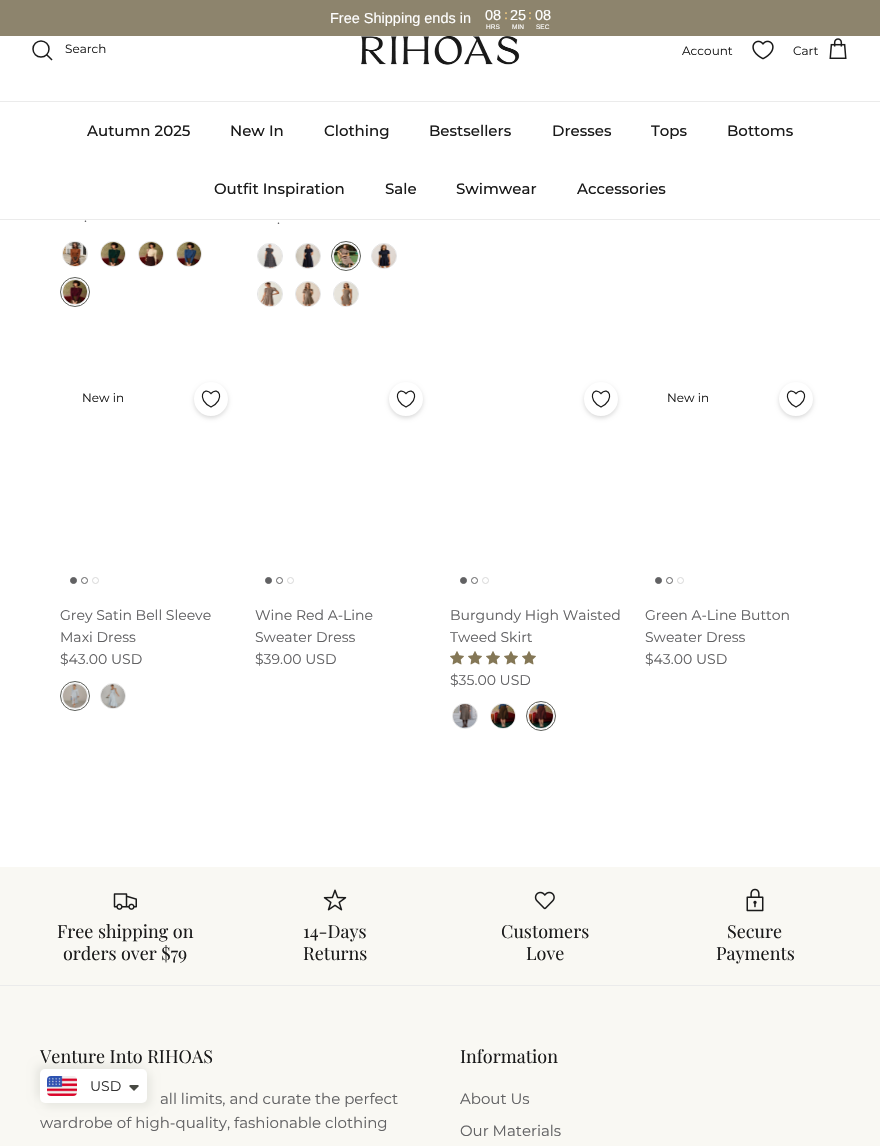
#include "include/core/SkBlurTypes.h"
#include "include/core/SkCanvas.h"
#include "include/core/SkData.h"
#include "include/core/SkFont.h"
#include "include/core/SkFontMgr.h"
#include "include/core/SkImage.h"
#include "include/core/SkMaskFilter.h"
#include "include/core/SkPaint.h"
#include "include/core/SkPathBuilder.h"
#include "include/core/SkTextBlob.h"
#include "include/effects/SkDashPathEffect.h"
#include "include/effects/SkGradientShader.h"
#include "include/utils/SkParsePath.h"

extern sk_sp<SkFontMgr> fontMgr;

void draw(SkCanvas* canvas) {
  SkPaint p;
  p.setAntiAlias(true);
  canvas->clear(SK_ColorWHITE);
  p.setColor(SkColorSetRGB(141, 132, 109));
  canvas->drawRect(SkRect::MakeLTRB(0, 0, 880, 36), p);
  p.setColor(SkColorSetRGB(235, 235, 235));
  canvas->drawRect(SkRect::MakeLTRB(0, 101, 880, 102), p);
  p.setStyle(SkPaint::kStroke_Style);
  p.setStrokeWidth(1.5f);
  p.setColor(SkColorSetRGB(26, 26, 26));
  canvas->drawCircle(41, 49, 8, p);
  p.setStrokeCap(SkPaint::kSquare_Cap);
  canvas->drawPath(SkPathBuilder().moveTo(47, 55).lineTo(51.5f, 59.5f).detach(), p);
  canvas->drawImageRect(SkImages::DeferredFromEncodedData(SkData::MakeFromFileName("images/1.png")), SkRect::MakeLTRB(361, 36, 520, 65), SkSamplingOptions());
  canvas->drawImageRect(SkImages::DeferredFromEncodedData(SkData::MakeFromFileName("images/2.png")), SkRect::MakeLTRB(752, 40, 774, 60), SkSamplingOptions());
  canvas->drawImageRect(SkImages::DeferredFromEncodedData(SkData::MakeFromFileName("images/3.png")), SkRect::MakeLTRB(829, 38, 847, 59), SkSamplingOptions());
  p.setStyle(SkPaint::kFill_Style);
  p.setColor(SkColorSetRGB(235, 235, 235));
  canvas->drawRect(SkRect::MakeLTRB(0, 219, 880, 220), p);
  p.setStyle(SkPaint::kStroke_Style);
  p.setStrokeWidth(1);
  p.setStrokeCap(SkPaint::kButt_Cap);
  p.setColor(SkColorSetRGB(227, 227, 227));
  canvas->drawCircle(75, 254, 12.5f, p);
  canvas->drawImageRect(SkImages::DeferredFromEncodedData(SkData::MakeFromFileName("images/4.png")), SkRect::MakeLTRB(63, 242, 87, 266), SkSamplingOptions());
  canvas->drawCircle(113, 254, 12.5f, p);
  canvas->drawImageRect(SkImages::DeferredFromEncodedData(SkData::MakeFromFileName("images/5.png")), SkRect::MakeLTRB(101, 242, 125, 266), SkSamplingOptions());
  canvas->drawCircle(151, 254, 12.5f, p);
  canvas->drawImageRect(SkImages::DeferredFromEncodedData(SkData::MakeFromFileName("images/6.png")), SkRect::MakeLTRB(139, 242, 163, 266), SkSamplingOptions());
  canvas->drawCircle(189, 254, 12.5f, p);
  canvas->drawImageRect(SkImages::DeferredFromEncodedData(SkData::MakeFromFileName("images/7.png")), SkRect::MakeLTRB(177, 242, 201, 266), SkSamplingOptions());
  p.setColor(SkColorSetRGB(93, 95, 90));
  canvas->drawCircle(75, 292, 14.5f, p);
  p.setColor(SkColorSetRGB(227, 227, 227));
  canvas->drawCircle(75, 292, 12.5f, p);
  canvas->drawImageRect(SkImages::DeferredFromEncodedData(SkData::MakeFromFileName("images/8.png")), SkRect::MakeLTRB(63, 280, 87, 304), SkSamplingOptions());
  canvas->drawCircle(270, 256, 12.5f, p);
  canvas->drawImageRect(SkImages::DeferredFromEncodedData(SkData::MakeFromFileName("images/9.png")), SkRect::MakeLTRB(258, 244, 282, 268), SkSamplingOptions());
  canvas->drawCircle(308, 256, 12.5f, p);
  canvas->drawImageRect(SkImages::DeferredFromEncodedData(SkData::MakeFromFileName("images/10.png")), SkRect::MakeLTRB(296, 244, 320, 268), SkSamplingOptions());
  p.setColor(SkColorSetRGB(93, 95, 90));
  canvas->drawCircle(346, 256, 14.5f, p);
  p.setColor(SkColorSetRGB(227, 227, 227));
  canvas->drawCircle(346, 256, 12.5f, p);
  canvas->drawImageRect(SkImages::DeferredFromEncodedData(SkData::MakeFromFileName("images/11.png")), SkRect::MakeLTRB(334, 244, 358, 268), SkSamplingOptions());
  canvas->drawCircle(384, 256, 12.5f, p);
  canvas->drawImageRect(SkImages::DeferredFromEncodedData(SkData::MakeFromFileName("images/12.png")), SkRect::MakeLTRB(372, 244, 396, 268), SkSamplingOptions());
  canvas->drawCircle(270, 294, 12.5f, p);
  canvas->drawImageRect(SkImages::DeferredFromEncodedData(SkData::MakeFromFileName("images/13.png")), SkRect::MakeLTRB(258, 282, 282, 306), SkSamplingOptions());
  canvas->drawCircle(308, 294, 12.5f, p);
  canvas->drawImageRect(SkImages::DeferredFromEncodedData(SkData::MakeFromFileName("images/14.png")), SkRect::MakeLTRB(296, 282, 320, 306), SkSamplingOptions());
  canvas->drawCircle(346, 294, 12.5f, p);
  canvas->drawImageRect(SkImages::DeferredFromEncodedData(SkData::MakeFromFileName("images/15.png")), SkRect::MakeLTRB(334, 282, 358, 306), SkSamplingOptions());
  p.setStyle(SkPaint::kFill_Style);
  p.setColor(SkColorSetRGB(97, 97, 99));
  canvas->drawCircle(73.5f, 580.5f, 3, p);
  p.setStyle(SkPaint::kStroke_Style);
  canvas->drawCircle(73.5f, 580.5f, 3, p);
  canvas->drawCircle(84.5f, 580.5f, 3, p);
  p.setColor(SkColorSetRGB(216, 216, 216));
  canvas->drawCircle(95.5f, 580.5f, 3, p);
  canvas->save();
  canvas->clipPath(SkPathBuilder(SkPathFillType::kEvenOdd).moveTo(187, 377).lineTo(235, 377).lineTo(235, 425).lineTo(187, 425).close().moveTo(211, 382).cubicTo(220.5f, 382, 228, 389.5f, 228, 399).cubicTo(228, 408.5f, 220.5f, 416, 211, 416).cubicTo(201.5f, 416, 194, 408.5f, 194, 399).cubicTo(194, 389.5f, 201.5f, 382, 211, 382).close().detach(), true);
  p.setStyle(SkPaint::kFill_Style);
  p.setColor(SkColorSetARGB(38, 0, 0, 0));
  p.setMaskFilter(SkMaskFilter::MakeBlur(kNormal_SkBlurStyle, 2));
  canvas->drawRoundRect(SkRect::MakeLTRB(194, 384, 228, 418), 17, 17, p);
  p.setMaskFilter(nullptr);
  canvas->restore();
  p.setStyle(SkPaint::kStroke_Style);
  p.setStrokeWidth(1.2f);
  p.setColor(SkColorSetRGB(26, 26, 26));
  canvas->drawPath(SkPathBuilder().moveTo(211, 407).cubicTo(196, 399.5f, 203.5f, 385.5f, 211, 393.5f).cubicTo(218.5f, 385.5f, 226, 399.5f, 211, 407).close().detach(), p);
  p.setStrokeWidth(1);
  p.setColor(SkColorSetRGB(93, 95, 90));
  canvas->drawCircle(75, 696, 14.5f, p);
  p.setColor(SkColorSetRGB(227, 227, 227));
  canvas->drawCircle(75, 696, 12.5f, p);
  canvas->drawImageRect(SkImages::DeferredFromEncodedData(SkData::MakeFromFileName("images/16.png")), SkRect::MakeLTRB(63, 684, 87, 708), SkSamplingOptions());
  canvas->drawCircle(113, 696, 12.5f, p);
  canvas->drawImageRect(SkImages::DeferredFromEncodedData(SkData::MakeFromFileName("images/17.png")), SkRect::MakeLTRB(101, 684, 125, 708), SkSamplingOptions());
  canvas->save();
  canvas->clipPath(SkPathBuilder(SkPathFillType::kEvenOdd).moveTo(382, 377).lineTo(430, 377).lineTo(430, 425).lineTo(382, 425).close().moveTo(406, 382).cubicTo(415.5f, 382, 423, 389.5f, 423, 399).cubicTo(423, 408.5f, 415.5f, 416, 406, 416).cubicTo(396.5f, 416, 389, 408.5f, 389, 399).cubicTo(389, 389.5f, 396.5f, 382, 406, 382).close().detach(), true);
  p.setStyle(SkPaint::kFill_Style);
  p.setColor(SkColorSetARGB(38, 0, 0, 0));
  p.setMaskFilter(SkMaskFilter::MakeBlur(kNormal_SkBlurStyle, 2));
  canvas->drawRoundRect(SkRect::MakeLTRB(389, 384, 423, 418), 17, 17, p);
  p.setMaskFilter(nullptr);
  canvas->restore();
  p.setStyle(SkPaint::kStroke_Style);
  p.setStrokeWidth(1.2f);
  p.setColor(SkColorSetRGB(26, 26, 26));
  canvas->drawPath(SkPathBuilder().moveTo(406, 407).cubicTo(391, 399.5f, 398.5f, 385.5f, 406, 393.5f).cubicTo(413.5f, 385.5f, 421, 399.5f, 406, 407).close().detach(), p);
  p.setStyle(SkPaint::kFill_Style);
  p.setColor(SkColorSetRGB(97, 97, 99));
  canvas->drawCircle(268.5f, 580.5f, 3, p);
  p.setStyle(SkPaint::kStroke_Style);
  p.setStrokeWidth(1);
  canvas->drawCircle(268.5f, 580.5f, 3, p);
  canvas->drawCircle(279.5f, 580.5f, 3, p);
  p.setColor(SkColorSetRGB(216, 216, 216));
  canvas->drawCircle(290.5f, 580.5f, 3, p);
  canvas->save();
  canvas->clipPath(SkPathBuilder(SkPathFillType::kEvenOdd).moveTo(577, 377).lineTo(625, 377).lineTo(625, 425).lineTo(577, 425).close().moveTo(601, 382).cubicTo(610.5f, 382, 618, 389.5f, 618, 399).cubicTo(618, 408.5f, 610.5f, 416, 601, 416).cubicTo(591.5f, 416, 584, 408.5f, 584, 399).cubicTo(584, 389.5f, 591.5f, 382, 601, 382).close().detach(), true);
  p.setStyle(SkPaint::kFill_Style);
  p.setColor(SkColorSetARGB(38, 0, 0, 0));
  p.setMaskFilter(SkMaskFilter::MakeBlur(kNormal_SkBlurStyle, 2));
  canvas->drawRoundRect(SkRect::MakeLTRB(584, 384, 618, 418), 17, 17, p);
  p.setMaskFilter(nullptr);
  canvas->restore();
  p.setStyle(SkPaint::kStroke_Style);
  p.setStrokeWidth(1.2f);
  p.setColor(SkColorSetRGB(26, 26, 26));
  canvas->drawPath(SkPathBuilder().moveTo(601, 407).cubicTo(586, 399.5f, 593.5f, 385.5f, 601, 393.5f).cubicTo(608.5f, 385.5f, 616, 399.5f, 601, 407).close().detach(), p);
  p.setStyle(SkPaint::kFill_Style);
  p.setColor(SkColorSetRGB(97, 97, 99));
  canvas->drawCircle(463.5f, 580.5f, 3, p);
  p.setStyle(SkPaint::kStroke_Style);
  p.setStrokeWidth(1);
  canvas->drawCircle(463.5f, 580.5f, 3, p);
  canvas->drawCircle(474.5f, 580.5f, 3, p);
  p.setColor(SkColorSetRGB(216, 216, 216));
  canvas->drawCircle(485.5f, 580.5f, 3, p);
  canvas->drawImageRect(SkImages::DeferredFromEncodedData(SkData::MakeFromFileName("images/18.png")), SkRect::MakeLTRB(450, 651, 464, 665), SkSamplingOptions());
  canvas->drawImageRect(SkImages::DeferredFromEncodedData(SkData::MakeFromFileName("images/18.png")), SkRect::MakeLTRB(468, 651, 482, 665), SkSamplingOptions());
  canvas->drawImageRect(SkImages::DeferredFromEncodedData(SkData::MakeFromFileName("images/18.png")), SkRect::MakeLTRB(486, 651, 500, 665), SkSamplingOptions());
  canvas->drawImageRect(SkImages::DeferredFromEncodedData(SkData::MakeFromFileName("images/18.png")), SkRect::MakeLTRB(504, 651, 518, 665), SkSamplingOptions());
  canvas->drawImageRect(SkImages::DeferredFromEncodedData(SkData::MakeFromFileName("images/18.png")), SkRect::MakeLTRB(522, 651, 536, 665), SkSamplingOptions());
  p.setColor(SkColorSetRGB(227, 227, 227));
  canvas->drawCircle(465, 716, 12.5f, p);
  canvas->drawImageRect(SkImages::DeferredFromEncodedData(SkData::MakeFromFileName("images/19.png")), SkRect::MakeLTRB(453, 704, 477, 728), SkSamplingOptions());
  canvas->drawCircle(503, 716, 12.5f, p);
  canvas->drawImageRect(SkImages::DeferredFromEncodedData(SkData::MakeFromFileName("images/20.png")), SkRect::MakeLTRB(491, 704, 515, 728), SkSamplingOptions());
  p.setColor(SkColorSetRGB(93, 95, 90));
  canvas->drawCircle(541, 716, 14.5f, p);
  p.setColor(SkColorSetRGB(227, 227, 227));
  canvas->drawCircle(541, 716, 12.5f, p);
  canvas->drawImageRect(SkImages::DeferredFromEncodedData(SkData::MakeFromFileName("images/21.png")), SkRect::MakeLTRB(529, 704, 553, 728), SkSamplingOptions());
  p.setStyle(SkPaint::kFill_Style);
  p.setColor(SkColorSetRGB(97, 97, 99));
  canvas->drawCircle(658.5f, 580.5f, 3, p);
  p.setStyle(SkPaint::kStroke_Style);
  canvas->drawCircle(658.5f, 580.5f, 3, p);
  canvas->drawCircle(669.5f, 580.5f, 3, p);
  p.setColor(SkColorSetRGB(216, 216, 216));
  canvas->drawCircle(680.5f, 580.5f, 3, p);
  canvas->save();
  canvas->clipPath(SkPathBuilder(SkPathFillType::kEvenOdd).moveTo(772, 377).lineTo(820, 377).lineTo(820, 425).lineTo(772, 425).close().moveTo(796, 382).cubicTo(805.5f, 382, 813, 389.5f, 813, 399).cubicTo(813, 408.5f, 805.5f, 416, 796, 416).cubicTo(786.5f, 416, 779, 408.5f, 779, 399).cubicTo(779, 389.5f, 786.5f, 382, 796, 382).close().detach(), true);
  p.setStyle(SkPaint::kFill_Style);
  p.setColor(SkColorSetARGB(38, 0, 0, 0));
  p.setMaskFilter(SkMaskFilter::MakeBlur(kNormal_SkBlurStyle, 2));
  canvas->drawRoundRect(SkRect::MakeLTRB(779, 384, 813, 418), 17, 17, p);
  p.setMaskFilter(nullptr);
  canvas->restore();
  p.setStyle(SkPaint::kStroke_Style);
  p.setStrokeWidth(1.2f);
  p.setColor(SkColorSetRGB(26, 26, 26));
  canvas->drawPath(SkPathBuilder().moveTo(796, 407).cubicTo(781, 399.5f, 788.5f, 385.5f, 796, 393.5f).cubicTo(803.5f, 385.5f, 811, 399.5f, 796, 407).close().detach(), p);
  p.setStyle(SkPaint::kFill_Style);
  p.setColor(SkColorSetRGB(249, 248, 243));
  canvas->drawRect(SkRect::MakeLTRB(0, 867, 880, 1146), p);
  canvas->drawImageRect(SkImages::DeferredFromEncodedData(SkData::MakeFromFileName("images/22.png")), SkRect::MakeLTRB(113, 893, 137, 910), SkSamplingOptions());
  canvas->drawImageRect(SkImages::DeferredFromEncodedData(SkData::MakeFromFileName("images/23.png")), SkRect::MakeLTRB(323, 889, 347, 911), SkSamplingOptions());
  canvas->drawImageRect(SkImages::DeferredFromEncodedData(SkData::MakeFromFileName("images/24.png")), SkRect::MakeLTRB(534, 891, 555, 910), SkSamplingOptions());
  canvas->drawImageRect(SkImages::DeferredFromEncodedData(SkData::MakeFromFileName("images/25.png")), SkRect::MakeLTRB(746, 888, 764, 912), SkSamplingOptions());
  p.setColor(SkColorSetRGB(235, 235, 235));
  canvas->drawRect(SkRect::MakeLTRB(0, 985, 880, 986), p);
  p.setColor(SkColorSetRGB(232, 232, 226));
  p.setMaskFilter(SkMaskFilter::MakeBlur(kNormal_SkBlurStyle, 4.5f));
  canvas->drawRoundRect(SkRect::MakeLTRB(36, 1065, 143, 1099), 5, 5, p);
  p.setMaskFilter(nullptr);
  p.setMaskFilter(SkMaskFilter::MakeBlur(kNormal_SkBlurStyle, 4.5f));
  canvas->drawRoundRect(SkRect::MakeLTRB(44, 1073, 151, 1107), 5, 5, p);
  p.setMaskFilter(nullptr);
  p.setColor(SK_ColorWHITE);
  canvas->drawRoundRect(SkRect::MakeLTRB(40, 1069, 147, 1103), 5, 5, p);
  canvas->drawImageRect(SkImages::DeferredFromEncodedData(SkData::MakeFromFileName("images/26.png")), SkRect::MakeLTRB(47, 1076, 77, 1096), SkSamplingOptions());
  p.setColor(SkColorSetRGB(71, 73, 66));
  canvas->drawPath(SkPathBuilder().moveTo(131, 1085).cubicTo(130, 1085, 129.5f, 1085.5f, 129, 1086).lineTo(134, 1091).lineTo(139, 1086).lineTo(138, 1085).close().detach(), p);
  SkFont font1(fontMgr->matchFamilyStyle("Liberation Sans", SkFontStyle::Normal()), 14.5f);
  font1.setSubpixel(true);
  p.setColor(SK_ColorWHITE);
  canvas->drawString("Free Shipping ends in", 330, 23, font1, p);
  canvas->drawString("08", 485, 20, font1, p);
  SkFont font2(fontMgr->matchFamilyStyle("Liberation Serif", SkFontStyle::Normal()), 14.5f);
  font2.setSubpixel(true);
  p.setColor(SkColorSetRGB(242, 202, 128));
  canvas->drawString(":", 504, 19, font2, p);
  p.setColor(SK_ColorWHITE);
  canvas->drawString("25", 510, 20, font1, p);
  p.setColor(SkColorSetRGB(242, 202, 128));
  canvas->drawString(":", 528, 19, font2, p);
  p.setColor(SK_ColorWHITE);
  canvas->drawString("08", 535, 20, font1, p);
  SkFont font3(fontMgr->matchFamilyStyle("Liberation Sans", SkFontStyle::Normal()), 6.5f);
  font3.setSubpixel(true);
  canvas->drawString("HRS", 486, 29, font3, p);
  canvas->drawString("MIN", 512, 29, font3, p);
  canvas->drawString("SEC", 536, 29, font3, p);
  SkFont font4(fontMgr->matchFamilyStyle("Montserrat", SkFontStyle::Normal()), 12);
  font4.setSubpixel(true);
  p.setColor(SkColorSetRGB(26, 26, 26));
  canvas->drawString("Search", 65, 53, font4, p);
  canvas->drawString("Account", 682, 55, font4, p);
  canvas->drawString("Cart", 793, 55, font4, p);
  SkFont font5(fontMgr->matchFamilyStyle("Montserrat", SkFontStyle(500, SkFontStyle::kNormal_Width, SkFontStyle::kUpright_Slant)), 15);
  font5.setSubpixel(true);
  canvas->drawString("Autumn 2025", 87, 136, font5, p);
  canvas->drawString("New In", 230, 136, font5, p);
  canvas->drawString("Clothing", 324, 136, font5, p);
  canvas->drawString("Bestsellers", 429, 136, font5, p);
  canvas->drawString("Dresses", 552, 136, font5, p);
  canvas->drawString("Tops", 651, 136, font5, p);
  canvas->drawString("Bottoms", 727, 136, font5, p);
  canvas->drawString("Outfit Inspiration", 214, 194, font5, p);
  canvas->drawString("Sale", 385, 194, font5, p);
  canvas->drawString("Swimwear", 456, 194, font5, p);
  canvas->drawString("Accessories", 577, 194, font5, p);
  SkFont font6(fontMgr->matchFamilyStyle("Montserrat", SkFontStyle::Normal()), 14);
  font6.setSubpixel(true);
  p.setColor(SkColorSetRGB(97, 97, 99));
  canvas->drawString(".", 84, 222, font6, p);
  canvas->drawString(".", 277, 224, font6, p);
  p.setColor(SkColorSetRGB(26, 26, 26));
  canvas->drawString("New in", 82, 402, font4, p);
  p.setColor(SkColorSetRGB(97, 97, 99));
  canvas->drawString("Grey Satin Bell Sleeve", 60, 620, font6, p);
  canvas->drawString("Maxi Dress", 60, 642, font6, p);
  canvas->drawString("$43.00 USD", 60, 664, font6, p);
  canvas->drawString("Wine Red A-Line", 255, 620, font6, p);
  canvas->drawString("Sweater Dress", 255, 642, font6, p);
  canvas->drawString("$39.00 USD", 255, 664, font6, p);
  canvas->drawString("Burgundy High Waisted", 450, 620, font6, p);
  canvas->drawString("Tweed Skirt", 450, 642, font6, p);
  canvas->drawString("$35.00 USD", 450, 685, font6, p);
  p.setColor(SkColorSetRGB(26, 26, 26));
  canvas->drawString("New in", 667, 402, font4, p);
  p.setColor(SkColorSetRGB(97, 97, 99));
  canvas->drawString("Green A-Line Button", 645, 620, font6, p);
  canvas->drawString("Sweater Dress", 645, 642, font6, p);
  canvas->drawString("$43.00 USD", 645, 664, font6, p);
  SkFont font7(fontMgr->matchFamilyStyle("Playfair Display", SkFontStyle::Normal()), 18);
  font7.setSubpixel(true);
  p.setColor(SkColorSetRGB(26, 26, 26));
  canvas->drawString("Free shipping on", 57, 938, font7, p);
  canvas->drawString("orders over $79", 63, 960, font7, p);
  canvas->drawString("14-Days", 303, 938, font7, p);
  canvas->drawString("Returns", 303, 960, font7, p);
  canvas->drawString("Customers", 501, 938, font7, p);
  canvas->drawString("Love", 526, 960, font7, p);
  canvas->drawString("Secure", 727, 938, font7, p);
  canvas->drawString("Payments", 716, 960, font7, p);
  canvas->drawString("Venture Into RIHOAS", 40, 1063, font7, p);
  SkFont font8(fontMgr->matchFamilyStyle("Montserrat", SkFontStyle::Normal()), 15);
  font8.setSubpixel(true);
  p.setColor(SkColorSetRGB(97, 97, 99));
  canvas->drawString("all limits, and curate the perfect", 160, 1104, font8, p);
  canvas->drawString("wardrobe of high-quality, fashionable clothing", 40, 1128, font8, p);
  p.setColor(SkColorSetRGB(26, 26, 26));
  canvas->drawString("Information", 460, 1063, font7, p);
  p.setColor(SkColorSetRGB(97, 97, 99));
  canvas->drawString("About Us", 460, 1104, font8, p);
  canvas->drawString("Our Materials", 460, 1136, font8, p);
  p.setColor(SkColorSetRGB(51, 51, 51));
  canvas->drawString("USD", 90, 1091, font6, p);
}
